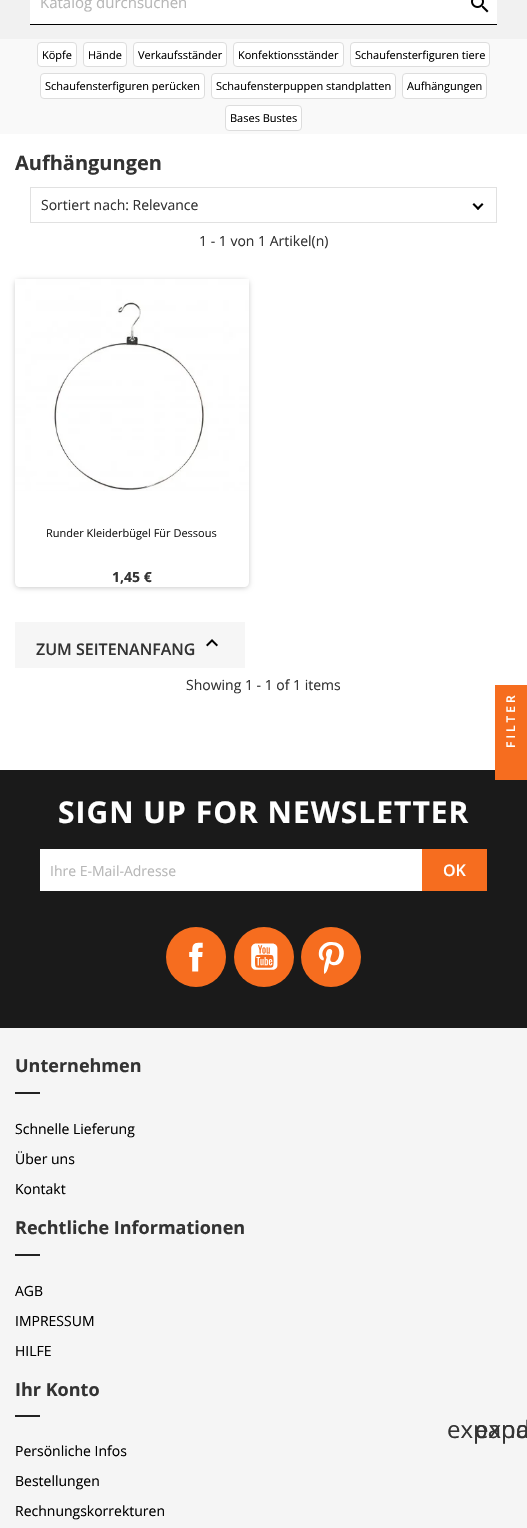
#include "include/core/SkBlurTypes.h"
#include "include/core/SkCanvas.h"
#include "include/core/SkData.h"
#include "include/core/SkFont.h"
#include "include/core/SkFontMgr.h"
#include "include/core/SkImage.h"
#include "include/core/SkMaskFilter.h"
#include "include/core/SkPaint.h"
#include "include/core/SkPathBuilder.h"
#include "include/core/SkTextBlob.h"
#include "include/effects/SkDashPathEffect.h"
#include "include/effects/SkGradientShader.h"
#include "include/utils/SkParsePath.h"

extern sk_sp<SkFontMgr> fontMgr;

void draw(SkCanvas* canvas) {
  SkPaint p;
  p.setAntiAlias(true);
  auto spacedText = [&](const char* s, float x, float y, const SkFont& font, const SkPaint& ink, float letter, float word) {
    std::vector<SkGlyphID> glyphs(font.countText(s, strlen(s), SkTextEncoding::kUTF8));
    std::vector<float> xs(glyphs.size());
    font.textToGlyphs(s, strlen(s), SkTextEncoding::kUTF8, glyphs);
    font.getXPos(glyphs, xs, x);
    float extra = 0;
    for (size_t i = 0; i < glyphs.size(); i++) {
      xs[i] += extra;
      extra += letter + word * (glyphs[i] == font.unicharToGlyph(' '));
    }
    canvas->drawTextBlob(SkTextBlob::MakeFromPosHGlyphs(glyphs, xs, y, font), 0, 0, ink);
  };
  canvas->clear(SK_ColorWHITE);
  p.setColor(SkColorSetRGB(241, 241, 241));
  canvas->drawRect(SkRect::MakeLTRB(0, 0, 527, 39), p);
  p.setColor(SK_ColorWHITE);
  canvas->drawRect(SkRect::MakeLTRB(30, 0, 497, 24), p);
  p.setColor(SK_ColorBLACK);
  canvas->drawRect(SkRect::MakeLTRB(30, 24, 497, 25), p);
  canvas->drawImageRect(SkImages::DeferredFromEncodedData(SkData::MakeFromFileName("images/1.png")), SkRect::MakeLTRB(471, 0, 489, 13), SkSamplingOptions());
  p.setColor(SkColorSetRGB(249, 249, 249));
  canvas->drawRect(SkRect::MakeLTRB(0, 39, 527, 134), p);
  p.setColor(SK_ColorWHITE);
  canvas->drawRoundRect(SkRect::MakeLTRB(37.5f, 42.5f, 76.5f, 66.5f), 3.5f, 3.5f, p);
  p.setStyle(SkPaint::kStroke_Style);
  p.setStrokeWidth(1);
  p.setColor(SkColorSetRGB(221, 221, 221));
  canvas->drawRoundRect(SkRect::MakeLTRB(37.5f, 42.5f, 76.5f, 66.5f), 3.5f, 3.5f, p);
  p.setStyle(SkPaint::kFill_Style);
  p.setColor(SK_ColorWHITE);
  canvas->drawRoundRect(SkRect::MakeLTRB(83.5f, 42.5f, 126.5f, 66.5f), 3.5f, 3.5f, p);
  p.setStyle(SkPaint::kStroke_Style);
  p.setColor(SkColorSetRGB(221, 221, 221));
  canvas->drawRoundRect(SkRect::MakeLTRB(83.5f, 42.5f, 126.5f, 66.5f), 3.5f, 3.5f, p);
  p.setStyle(SkPaint::kFill_Style);
  p.setColor(SK_ColorWHITE);
  canvas->drawRoundRect(SkRect::MakeLTRB(133.5f, 42.5f, 226.5f, 66.5f), 3.5f, 3.5f, p);
  p.setStyle(SkPaint::kStroke_Style);
  p.setColor(SkColorSetRGB(221, 221, 221));
  canvas->drawRoundRect(SkRect::MakeLTRB(133.5f, 42.5f, 226.5f, 66.5f), 3.5f, 3.5f, p);
  p.setStyle(SkPaint::kFill_Style);
  p.setColor(SK_ColorWHITE);
  canvas->drawRoundRect(SkRect::MakeLTRB(233.5f, 42.5f, 343.5f, 66.5f), 3.5f, 3.5f, p);
  p.setStyle(SkPaint::kStroke_Style);
  p.setColor(SkColorSetRGB(221, 221, 221));
  canvas->drawRoundRect(SkRect::MakeLTRB(233.5f, 42.5f, 343.5f, 66.5f), 3.5f, 3.5f, p);
  p.setStyle(SkPaint::kFill_Style);
  p.setColor(SK_ColorWHITE);
  canvas->drawRoundRect(SkRect::MakeLTRB(350.5f, 42.5f, 489.5f, 66.5f), 3.5f, 3.5f, p);
  p.setStyle(SkPaint::kStroke_Style);
  p.setColor(SkColorSetRGB(221, 221, 221));
  canvas->drawRoundRect(SkRect::MakeLTRB(350.5f, 42.5f, 489.5f, 66.5f), 3.5f, 3.5f, p);
  p.setStyle(SkPaint::kFill_Style);
  p.setColor(SK_ColorWHITE);
  canvas->drawRoundRect(SkRect::MakeLTRB(40.5f, 73.5f, 204.5f, 98.5f), 3.5f, 3.5f, p);
  p.setStyle(SkPaint::kStroke_Style);
  p.setColor(SkColorSetRGB(221, 221, 221));
  canvas->drawRoundRect(SkRect::MakeLTRB(40.5f, 73.5f, 204.5f, 98.5f), 3.5f, 3.5f, p);
  p.setStyle(SkPaint::kFill_Style);
  p.setColor(SK_ColorWHITE);
  canvas->drawRoundRect(SkRect::MakeLTRB(211.5f, 73.5f, 395.5f, 98.5f), 3.5f, 3.5f, p);
  p.setStyle(SkPaint::kStroke_Style);
  p.setColor(SkColorSetRGB(221, 221, 221));
  canvas->drawRoundRect(SkRect::MakeLTRB(211.5f, 73.5f, 395.5f, 98.5f), 3.5f, 3.5f, p);
  p.setStyle(SkPaint::kFill_Style);
  p.setColor(SK_ColorWHITE);
  canvas->drawRoundRect(SkRect::MakeLTRB(402.5f, 73.5f, 486.5f, 98.5f), 3.5f, 3.5f, p);
  p.setStyle(SkPaint::kStroke_Style);
  p.setColor(SkColorSetRGB(221, 221, 221));
  canvas->drawRoundRect(SkRect::MakeLTRB(402.5f, 73.5f, 486.5f, 98.5f), 3.5f, 3.5f, p);
  p.setStyle(SkPaint::kFill_Style);
  p.setColor(SK_ColorWHITE);
  canvas->drawRoundRect(SkRect::MakeLTRB(225.5f, 105.5f, 301.5f, 130.5f), 3.5f, 3.5f, p);
  p.setStyle(SkPaint::kStroke_Style);
  p.setColor(SkColorSetRGB(221, 221, 221));
  canvas->drawRoundRect(SkRect::MakeLTRB(225.5f, 105.5f, 301.5f, 130.5f), 3.5f, 3.5f, p);
  p.setColor(SkColorSetRGB(225, 225, 225));
  canvas->drawRect(SkRect::MakeLTRB(30.5f, 187.5f, 496.5f, 222.5f), p);
  p.setStyle(SkPaint::kFill_Style);
  p.setColor(SK_ColorBLACK);
  canvas->drawPath(SkPathBuilder().moveTo(482, 203).lineTo(483.5f, 204.5f).lineTo(478, 210).lineTo(476.5f, 208.5f).close().detach(), p);
  canvas->drawPath(SkPathBuilder().moveTo(474, 203).lineTo(479.5f, 208.5f).lineTo(478, 210).lineTo(472.5f, 204.5f).close().detach(), p);
  canvas->save();
  canvas->clipPath(SkPathBuilder(SkPathFillType::kEvenOdd).moveTo(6, 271).lineTo(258, 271).lineTo(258, 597).lineTo(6, 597).close().moveTo(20, 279).lineTo(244, 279).cubicTo(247, 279, 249, 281, 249, 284).lineTo(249, 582).cubicTo(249, 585, 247, 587, 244, 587).lineTo(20, 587).cubicTo(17, 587, 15, 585, 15, 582).lineTo(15, 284).cubicTo(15, 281, 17, 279, 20, 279).close().detach(), true);
  p.setColor(SkColorSetARGB(51, 0, 0, 0));
  p.setMaskFilter(SkMaskFilter::MakeBlur(kNormal_SkBlurStyle, 2.5f));
  canvas->drawRoundRect(SkRect::MakeLTRB(15, 280, 249, 588), 5, 5, p);
  p.setMaskFilter(nullptr);
  canvas->restore();
  canvas->drawImageRect(SkImages::DeferredFromEncodedData(SkData::MakeFromFileName("images/2.png")), SkRect::MakeLTRB(15, 279, 249, 491), SkSamplingOptions());
  p.setColor(SkColorSetRGB(246, 246, 246));
  canvas->drawRect(SkRect::MakeLTRB(15, 622, 245, 668), p);
  canvas->drawImageRect(SkImages::DeferredFromEncodedData(SkData::MakeFromFileName("images/3.png")), SkRect::MakeLTRB(206, 639, 218, 647), SkSamplingOptions());
  p.setColor(SkColorSetRGB(26, 26, 26));
  canvas->drawRect(SkRect::MakeLTRB(0, 770, 527, 1028), p);
  p.setColor(SK_ColorWHITE);
  canvas->drawRect(SkRect::MakeLTRB(40, 849, 422, 891), p);
  p.setColor(SkColorSetRGB(246, 109, 31));
  canvas->drawRect(SkRect::MakeLTRB(422, 849, 487, 891), p);
  canvas->drawCircle(196, 957, 30, p);
  canvas->drawImageRect(SkImages::DeferredFromEncodedData(SkData::MakeFromFileName("images/4.png")), SkRect::MakeLTRB(189, 942, 203, 972), SkSamplingOptions());
  canvas->drawCircle(264, 957, 30, p);
  canvas->drawImageRect(SkImages::DeferredFromEncodedData(SkData::MakeFromFileName("images/5.png")), SkRect::MakeLTRB(251, 943, 278, 970), SkSamplingOptions());
  canvas->drawCircle(331, 957, 30, p);
  canvas->drawImageRect(SkImages::DeferredFromEncodedData(SkData::MakeFromFileName("images/6.png")), SkRect::MakeLTRB(318, 942, 344, 974), SkSamplingOptions());
  p.setColor(SkColorSetRGB(245, 245, 245));
  canvas->drawRect(SkRect::MakeLTRB(0, 1028, 527, 1528), p);
  p.setColor(SkColorSetRGB(34, 34, 34));
  canvas->drawRect(SkRect::MakeLTRB(15, 1092, 40, 1094), p);
  canvas->drawRect(SkRect::MakeLTRB(15, 1254, 40, 1256), p);
  canvas->drawRect(SkRect::MakeLTRB(15, 1415, 40, 1417), p);
  p.setColor(SkColorSetRGB(246, 109, 31));
  canvas->drawRect(SkRect::MakeLTRB(495, 685, 527, 780), p);
  SkFont font1(fontMgr->matchFamilyStyle("Open Sans", SkFontStyle::Normal()), 15);
  font1.setSubpixel(true);
  p.setColor(SkColorSetRGB(183, 183, 183));
  canvas->drawString("Katalog durchsuchen", 40, 8, font1, p);
  SkFont font2(fontMgr->matchFamilyStyle("Open Sans", SkFontStyle::Normal()), 11);
  font2.setSubpixel(true);
  p.setColor(SK_ColorBLACK);
  canvas->drawString("Köpfe", 42, 59, font2, p);
  canvas->drawString("Hände", 88, 59, font2, p);
  canvas->drawString("Verkaufsständer", 138, 59, font2, p);
  canvas->drawString("Konfektionsständer", 238, 59, font2, p);
  canvas->drawString("Schaufensterfiguren tiere", 355, 59, font2, p);
  canvas->drawString("Schaufensterfiguren perücken", 45, 90, font2, p);
  canvas->drawString("Schaufensterpuppen standplatten", 216, 90, font2, p);
  canvas->drawString("Aufhängungen", 407, 90, font2, p);
  canvas->drawString("Bases Bustes", 230, 122, font2, p);
  SkFont font3(fontMgr->matchFamilyStyle("Open Sans", SkFontStyle::Bold()), 20);
  font3.setSubpixel(true);
  p.setColor(SkColorSetRGB(51, 51, 51));
  canvas->drawString("Aufhängungen", 15, 170, font3, p);
  SkFont font4(fontMgr->matchFamilyStyle("Open Sans", SkFontStyle::Normal()), 14);
  font4.setSubpixel(true);
  canvas->drawString("Sortiert nach: Relevance", 41, 210, font4, p);
  canvas->drawString("1 - 1 von 1 Artikel(n)", 199, 246, font4, p);
  p.setColor(SkColorSetRGB(26, 26, 26));
  canvas->drawString("Runder Kleiderbügel Für Dessous", 46, 537, font2, p);
  SkFont font5(fontMgr->matchFamilyStyle("Open Sans", SkFontStyle::Bold()), 14);
  font5.setSubpixel(true);
  p.setColor(SkColorSetRGB(51, 51, 51));
  canvas->drawString("1,45 €", 112, 582, font5, p);
  SkFont font6(fontMgr->matchFamilyStyle("Open Sans", SkFontStyle(600, SkFontStyle::kNormal_Width, SkFontStyle::kUpright_Slant)), 16);
  font6.setSubpixel(true);
  canvas->drawString("ZUM SEITENANFANG", 36, 655, font6, p);
  canvas->drawString("Showing 1 - 1 of 1 items", 186, 690, font4, p);
  SkFont font7(fontMgr->matchFamilyStyle("Open Sans", SkFontStyle::Bold()), 30);
  font7.setSubpixel(true);
  p.setColor(SK_ColorWHITE);
  spacedText("SIGN UP FOR NEWSLETTER", 58, 823, font7, p, 1, 0);
  p.setColor(SkColorSetRGB(183, 183, 183));
  canvas->drawString("Ihre E-Mail-Adresse", 50, 876, font4, p);
  p.setColor(SK_ColorWHITE);
  canvas->drawString("OK", 443, 876, font6, p);
  SkFont font8(fontMgr->matchFamilyStyle("Open Sans", SkFontStyle::Bold()), 18);
  font8.setSubpixel(true);
  p.setColor(SkColorSetRGB(51, 51, 51));
  canvas->drawString("Unternehmen", 15, 1072, font8, p);
  p.setColor(SK_ColorBLACK);
  canvas->drawString("Schnelle Lieferung", 15, 1134, font4, p);
  canvas->drawString("Über uns", 15, 1164, font4, p);
  canvas->drawString("Kontakt", 15, 1194, font4, p);
  p.setColor(SkColorSetRGB(51, 51, 51));
  canvas->drawString("Rechtliche Informationen", 15, 1234, font8, p);
  p.setColor(SK_ColorBLACK);
  canvas->drawString("AGB", 15, 1296, font4, p);
  canvas->drawString("IMPRESSUM", 15, 1326, font4, p);
  canvas->drawString("HILFE", 15, 1356, font4, p);
  p.setColor(SkColorSetRGB(51, 51, 51));
  canvas->drawString("Ihr Konto", 15, 1396, font8, p);
  SkFont font9(fontMgr->matchFamilyStyle("Open Sans", SkFontStyle::Normal()), 24);
  font9.setSubpixel(true);
  canvas->drawString("expand", 447, 1438, font9, p);
  canvas->drawString("expa", 475, 1438, font9, p);
  p.setColor(SK_ColorBLACK);
  canvas->drawString("Persönliche Infos", 15, 1456, font4, p);
  canvas->drawString("Bestellungen", 15, 1486, font4, p);
  canvas->drawString("Rechnungskorrekturen", 15, 1516, font4, p);
  SkFont font10(fontMgr->matchFamilyStyle("Open Sans", SkFontStyle(600, SkFontStyle::kNormal_Width, SkFontStyle::kUpright_Slant)), 12);
  font10.setSubpixel(true);
  p.setColor(SK_ColorWHITE);
  canvas->save();
  canvas->rotate(-90, 515, 748);
  spacedText("FILTER", 515, 748, font10, p, 3, 0);
  canvas->restore();
}
